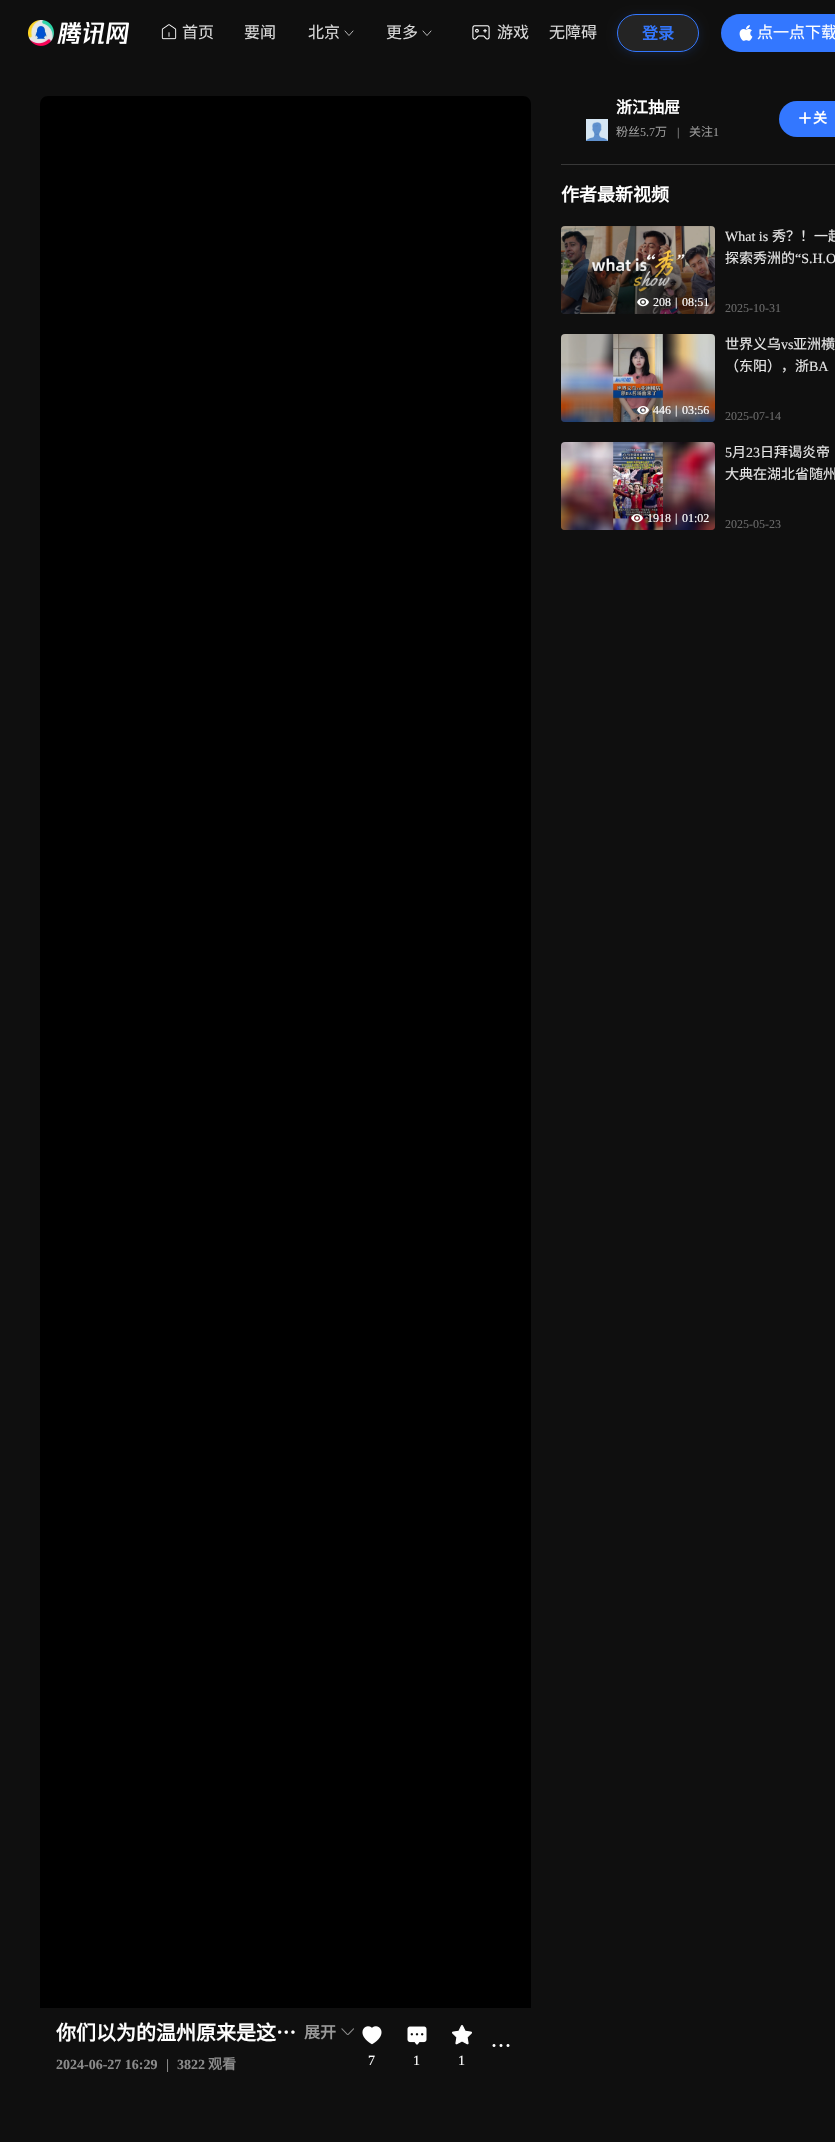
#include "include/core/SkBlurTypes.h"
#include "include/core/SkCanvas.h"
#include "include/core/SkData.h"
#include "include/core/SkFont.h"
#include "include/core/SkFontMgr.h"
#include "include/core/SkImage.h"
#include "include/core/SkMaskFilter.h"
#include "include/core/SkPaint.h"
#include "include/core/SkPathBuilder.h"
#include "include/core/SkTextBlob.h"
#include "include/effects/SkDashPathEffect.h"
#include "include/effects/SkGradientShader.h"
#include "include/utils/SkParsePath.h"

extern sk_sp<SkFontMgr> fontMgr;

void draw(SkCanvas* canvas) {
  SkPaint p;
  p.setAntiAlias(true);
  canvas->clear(SkColorSetRGB(15, 15, 15));
  canvas->drawImageRect(SkImages::DeferredFromEncodedData(SkData::MakeFromFileName("images/1.png")), SkRect::MakeLTRB(28, 20, 129, 46), SkSamplingOptions());
  canvas->drawImageRect(SkImages::DeferredFromEncodedData(SkData::MakeFromFileName("images/2.png")), SkRect::MakeLTRB(161, 24, 177, 40), SkSamplingOptions());
  p.setStyle(SkPaint::kStroke_Style);
  p.setStrokeWidth(0.7f);
  p.setStrokeCap(SkPaint::kRound_Cap);
  p.setStrokeJoin(SkPaint::kRound_Join);
  p.setColor(SK_ColorWHITE);
  canvas->drawPath(SkPathBuilder().moveTo(353, 31).lineTo(349, 35.5f).lineTo(345, 31).detach(), p);
  canvas->drawPath(SkPathBuilder().moveTo(431, 31).lineTo(427, 35.5f).lineTo(423, 31).detach(), p);
  canvas->drawImageRect(SkImages::DeferredFromEncodedData(SkData::MakeFromFileName("images/3.png")), SkRect::MakeLTRB(472, 25, 490, 40), SkSamplingOptions());
  canvas->save();
  canvas->clipPath(SkPathBuilder(SkPathFillType::kEvenOdd).moveTo(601, 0).lineTo(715, 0).lineTo(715, 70).lineTo(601, 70).close().moveTo(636, 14).lineTo(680, 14).cubicTo(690.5f, 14, 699, 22.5f, 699, 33).cubicTo(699, 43.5f, 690.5f, 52, 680, 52).lineTo(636, 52).cubicTo(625.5f, 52, 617, 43.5f, 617, 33).cubicTo(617, 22.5f, 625.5f, 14, 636, 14).close().detach(), true);
  p.setStyle(SkPaint::kFill_Style);
  p.setColor(SkColorSetARGB(41, 51, 119, 255));
  p.setMaskFilter(SkMaskFilter::MakeBlur(kNormal_SkBlurStyle, 5));
  canvas->drawRoundRect(SkRect::MakeLTRB(617, 16, 699, 54), 19, 19, p);
  p.setMaskFilter(nullptr);
  canvas->restore();
  p.setColor(SkColorSetARGB(26, 217, 217, 217));
  canvas->drawRoundRect(SkRect::MakeLTRB(617.5f, 14.5f, 698.5f, 51.5f), 18.5f, 18.5f, p);
  p.setStyle(SkPaint::kStroke_Style);
  p.setStrokeWidth(1);
  p.setStrokeCap(SkPaint::kButt_Cap);
  p.setStrokeJoin(SkPaint::kMiter_Join);
  p.setColor(SkColorSetRGB(51, 119, 255));
  canvas->drawRoundRect(SkRect::MakeLTRB(617.5f, 14.5f, 698.5f, 51.5f), 18.5f, 18.5f, p);
  p.setStyle(SkPaint::kFill_Style);
  canvas->drawRoundRect(SkRect::MakeLTRB(721, 14, 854, 52), 19, 19, p);
  canvas->drawImageRect(SkImages::DeferredFromEncodedData(SkData::MakeFromFileName("images/4.png")), SkRect::MakeLTRB(739, 25, 753, 41), SkSamplingOptions());
  canvas->drawImageRect(SkImages::DeferredFromEncodedData(SkData::MakeFromFileName("images/5.png")), SkRect::MakeLTRB(586, 119, 608, 141), SkSamplingOptions());
  canvas->drawRoundRect(SkRect::MakeLTRB(779, 101, 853, 137), 18, 18, p);
  canvas->drawImageRect(SkImages::DeferredFromEncodedData(SkData::MakeFromFileName("images/6.png")), SkRect::MakeLTRB(799, 112, 811, 124), SkSamplingOptions());
  p.setColor(SkColorSetRGB(56, 56, 56));
  canvas->drawRect(SkRect::MakeLTRB(561, 164, 835, 165), p);
  canvas->drawImageRect(SkImages::DeferredFromEncodedData(SkData::MakeFromFileName("images/7.png")), SkRect::MakeLTRB(561, 226, 715, 314), SkSamplingOptions());
  {
    const SkColor colors[] = {SkColorSetARGB(77, 0, 0, 0), SkColorSetARGB(0, 0, 0, 0)};
    const float stops[] = {0.3f, 0.6f};
    const SkPoint ends[] = {{638, 314}, {638, 226}};
    p.setShader(SkGradientShader::MakeLinear(ends, colors, stops, 2, SkTileMode::kClamp));
    p.setAlpha(255);
  }
  canvas->drawRoundRect(SkRect::MakeLTRB(561, 226, 715, 314), 4, 4, p);
  canvas->drawImageRect(SkImages::DeferredFromEncodedData(SkData::MakeFromFileName("images/8.png")), SkRect::MakeLTRB(637, 298, 649, 307), SkSamplingOptions());
  canvas->drawImageRect(SkImages::DeferredFromEncodedData(SkData::MakeFromFileName("images/9.png")), SkRect::MakeLTRB(561, 334, 715, 422), SkSamplingOptions());
  {
    const SkColor colors[] = {SkColorSetARGB(77, 0, 0, 0), SkColorSetARGB(0, 0, 0, 0)};
    const float stops[] = {0.3f, 0.6f};
    const SkPoint ends[] = {{638, 422}, {638, 334}};
    p.setShader(SkGradientShader::MakeLinear(ends, colors, stops, 2, SkTileMode::kClamp));
    p.setAlpha(255);
  }
  canvas->drawRoundRect(SkRect::MakeLTRB(561, 334, 715, 422), 4, 4, p);
  canvas->drawImageRect(SkImages::DeferredFromEncodedData(SkData::MakeFromFileName("images/10.png")), SkRect::MakeLTRB(637, 406, 649, 415), SkSamplingOptions());
  canvas->drawImageRect(SkImages::DeferredFromEncodedData(SkData::MakeFromFileName("images/11.png")), SkRect::MakeLTRB(561, 442, 715, 530), SkSamplingOptions());
  {
    const SkColor colors[] = {SkColorSetARGB(77, 0, 0, 0), SkColorSetARGB(0, 0, 0, 0)};
    const float stops[] = {0.3f, 0.6f};
    const SkPoint ends[] = {{638, 530}, {638, 442}};
    p.setShader(SkGradientShader::MakeLinear(ends, colors, stops, 2, SkTileMode::kClamp));
    p.setAlpha(255);
  }
  canvas->drawRoundRect(SkRect::MakeLTRB(561, 442, 715, 530), 4, 4, p);
  canvas->drawImageRect(SkImages::DeferredFromEncodedData(SkData::MakeFromFileName("images/12.png")), SkRect::MakeLTRB(631, 514, 643, 523), SkSamplingOptions());
  p.setShader(nullptr);
  p.setColor(SK_ColorBLACK);
  canvas->drawPath(SkPathBuilder().moveTo(48, 96).lineTo(523, 96).cubicTo(527.5f, 96, 531, 99.5f, 531, 104).lineTo(531, 2008).lineTo(40, 2008).lineTo(40, 104).cubicTo(40, 99.5f, 43.5f, 96, 48, 96).close().detach(), p);
  canvas->drawImageRect(SkImages::DeferredFromEncodedData(SkData::MakeFromFileName("images/13.png")), SkRect::MakeLTRB(341, 2028, 354, 2035), SkSamplingOptions());
  canvas->drawImageRect(SkImages::DeferredFromEncodedData(SkData::MakeFromFileName("images/14.png")), SkRect::MakeLTRB(492, 2044, 510, 2047), SkSamplingOptions());
  canvas->drawImageRect(SkImages::DeferredFromEncodedData(SkData::MakeFromFileName("images/15.png")), SkRect::MakeLTRB(362, 2026, 382, 2045), SkSamplingOptions());
  canvas->drawImageRect(SkImages::DeferredFromEncodedData(SkData::MakeFromFileName("images/16.png")), SkRect::MakeLTRB(407, 2026, 427, 2045), SkSamplingOptions());
  canvas->drawImageRect(SkImages::DeferredFromEncodedData(SkData::MakeFromFileName("images/17.png")), SkRect::MakeLTRB(452, 2025, 472, 2045), SkSamplingOptions());
  SkFont font1(fontMgr->matchFamilyStyle("Noto Sans CJK SC", SkFontStyle::Normal()), 16);
  font1.setSubpixel(true);
  p.setColor(SkColorSetRGB(217, 217, 217));
  canvas->drawString("首页", 182, 38, font1, p);
  canvas->drawString("要闻", 244, 38, font1, p);
  canvas->drawString("北京", 308, 38, font1, p);
  canvas->drawString("更多", 386, 38, font1, p);
  canvas->drawString("游戏", 497, 38, font1, p);
  canvas->drawString("无障碍", 549, 38, font1, p);
  SkFont font2(fontMgr->matchFamilyStyle("Noto Sans CJK SC", SkFontStyle::Bold()), 16);
  font2.setSubpixel(true);
  p.setColor(SkColorSetRGB(51, 119, 255));
  canvas->drawString("登录", 642, 39, font2, p);
  p.setColor(SK_ColorWHITE);
  canvas->drawString("点一点下载", 757, 38, font1, p);
  canvas->drawString("浙江抽屉", 616, 113, font2, p);
  SkFont font3(fontMgr->matchFamilyStyle("Noto Sans CJK SC", SkFontStyle::Normal()), 12);
  font3.setSubpixel(true);
  p.setColor(SkColorSetRGB(153, 153, 153));
  canvas->drawString("粉丝", 616, 136, font3, p);
  SkFont font4(fontMgr->matchFamilyStyle("Liberation Serif", SkFontStyle::Normal()), 12);
  font4.setSubpixel(true);
  canvas->drawString("5.7", 640, 136, font4, p);
  canvas->drawString("万", 655, 136, font3, p);
  canvas->drawString("|", 677, 136, font4, p);
  canvas->drawString("关注", 689, 136, font3, p);
  canvas->drawString("1", 713, 136, font4, p);
  SkFont font5(fontMgr->matchFamilyStyle("Noto Sans CJK SC", SkFontStyle::Bold()), 14);
  font5.setSubpixel(true);
  p.setColor(SK_ColorWHITE);
  canvas->drawString("关", 813, 123, font5, p);
  SkFont font6(fontMgr->matchFamilyStyle("Noto Sans CJK SC", SkFontStyle::Bold()), 18);
  font6.setSubpixel(true);
  canvas->drawString("作者最新视频", 561, 201, font6, p);
  canvas->drawString("208", 653, 306, font4, p);
  canvas->drawString("|", 675, 306, font4, p);
  canvas->drawString("08:51", 682, 306, font4, p);
  SkFont font7(fontMgr->matchFamilyStyle("Liberation Serif", SkFontStyle::Normal()), 14);
  font7.setSubpixel(true);
  p.setColor(SkColorSetRGB(230, 230, 230));
  canvas->drawString("What is", 725, 241, font7, p);
  SkFont font8(fontMgr->matchFamilyStyle("Noto Sans CJK SC", SkFontStyle::Normal()), 14);
  font8.setSubpixel(true);
  canvas->drawString("秀？！一起", 772, 241, font8, p);
  canvas->drawString("探索秀洲的", 725, 263, font8, p);
  canvas->drawString("“S.H.O", 795, 263, font7, p);
  p.setColor(SkColorSetRGB(105, 105, 105));
  canvas->drawString("2025-10-31", 725, 312, font4, p);
  p.setColor(SK_ColorWHITE);
  canvas->drawString("446", 653, 414, font4, p);
  canvas->drawString("|", 675, 414, font4, p);
  canvas->drawString("03:56", 682, 414, font4, p);
  p.setColor(SkColorSetRGB(230, 230, 230));
  canvas->drawString("世界义乌", 725, 349, font8, p);
  canvas->drawString("vs", 781, 349, font7, p);
  canvas->drawString("亚洲横", 793, 349, font8, p);
  canvas->drawString("（东阳），浙", 725, 371, font8, p);
  canvas->drawString("BA", 809, 371, font7, p);
  p.setColor(SkColorSetRGB(105, 105, 105));
  canvas->drawString("2025-07-14", 725, 420, font4, p);
  p.setColor(SK_ColorWHITE);
  canvas->drawString("1918", 647, 522, font4, p);
  canvas->drawString("|", 675, 522, font4, p);
  canvas->drawString("01:02", 682, 522, font4, p);
  p.setColor(SkColorSetRGB(230, 230, 230));
  canvas->drawString("5", 725, 457, font7, p);
  canvas->drawString("月", 732, 457, font8, p);
  canvas->drawString("23", 746, 457, font7, p);
  canvas->drawString("日拜谒炎帝", 760, 457, font8, p);
  canvas->drawString("大典在湖北省随州", 725, 479, font8, p);
  p.setColor(SkColorSetRGB(105, 105, 105));
  canvas->drawString("2025-05-23", 725, 528, font4, p);
  SkFont font9(fontMgr->matchFamilyStyle("Noto Sans CJK SC", SkFontStyle::Bold()), 20);
  font9.setSubpixel(true);
  p.setColor(SK_ColorWHITE);
  canvas->drawString("你们以为的温州原来是这…", 56, 2040, font9, p);
  p.setColor(SkColorSetRGB(153, 153, 153));
  canvas->drawString("展开", 304, 2038, font2, p);
  SkFont font10(fontMgr->matchFamilyStyle("Liberation Serif", SkFontStyle::Bold()), 14);
  font10.setSubpixel(true);
  p.setColor(SkColorSetRGB(139, 139, 139));
  canvas->drawString("2024-06-27 16:29", 56, 2069, font10, p);
  canvas->drawString("|", 166, 2069, font10, p);
  canvas->drawString("3822", 177, 2069, font10, p);
  canvas->drawString("观看", 208, 2069, font5, p);
  p.setColor(SK_ColorWHITE);
  canvas->drawString("7", 368, 2065, font7, p);
  canvas->drawString("1", 413, 2065, font7, p);
  canvas->drawString("1", 458, 2065, font7, p);
}
